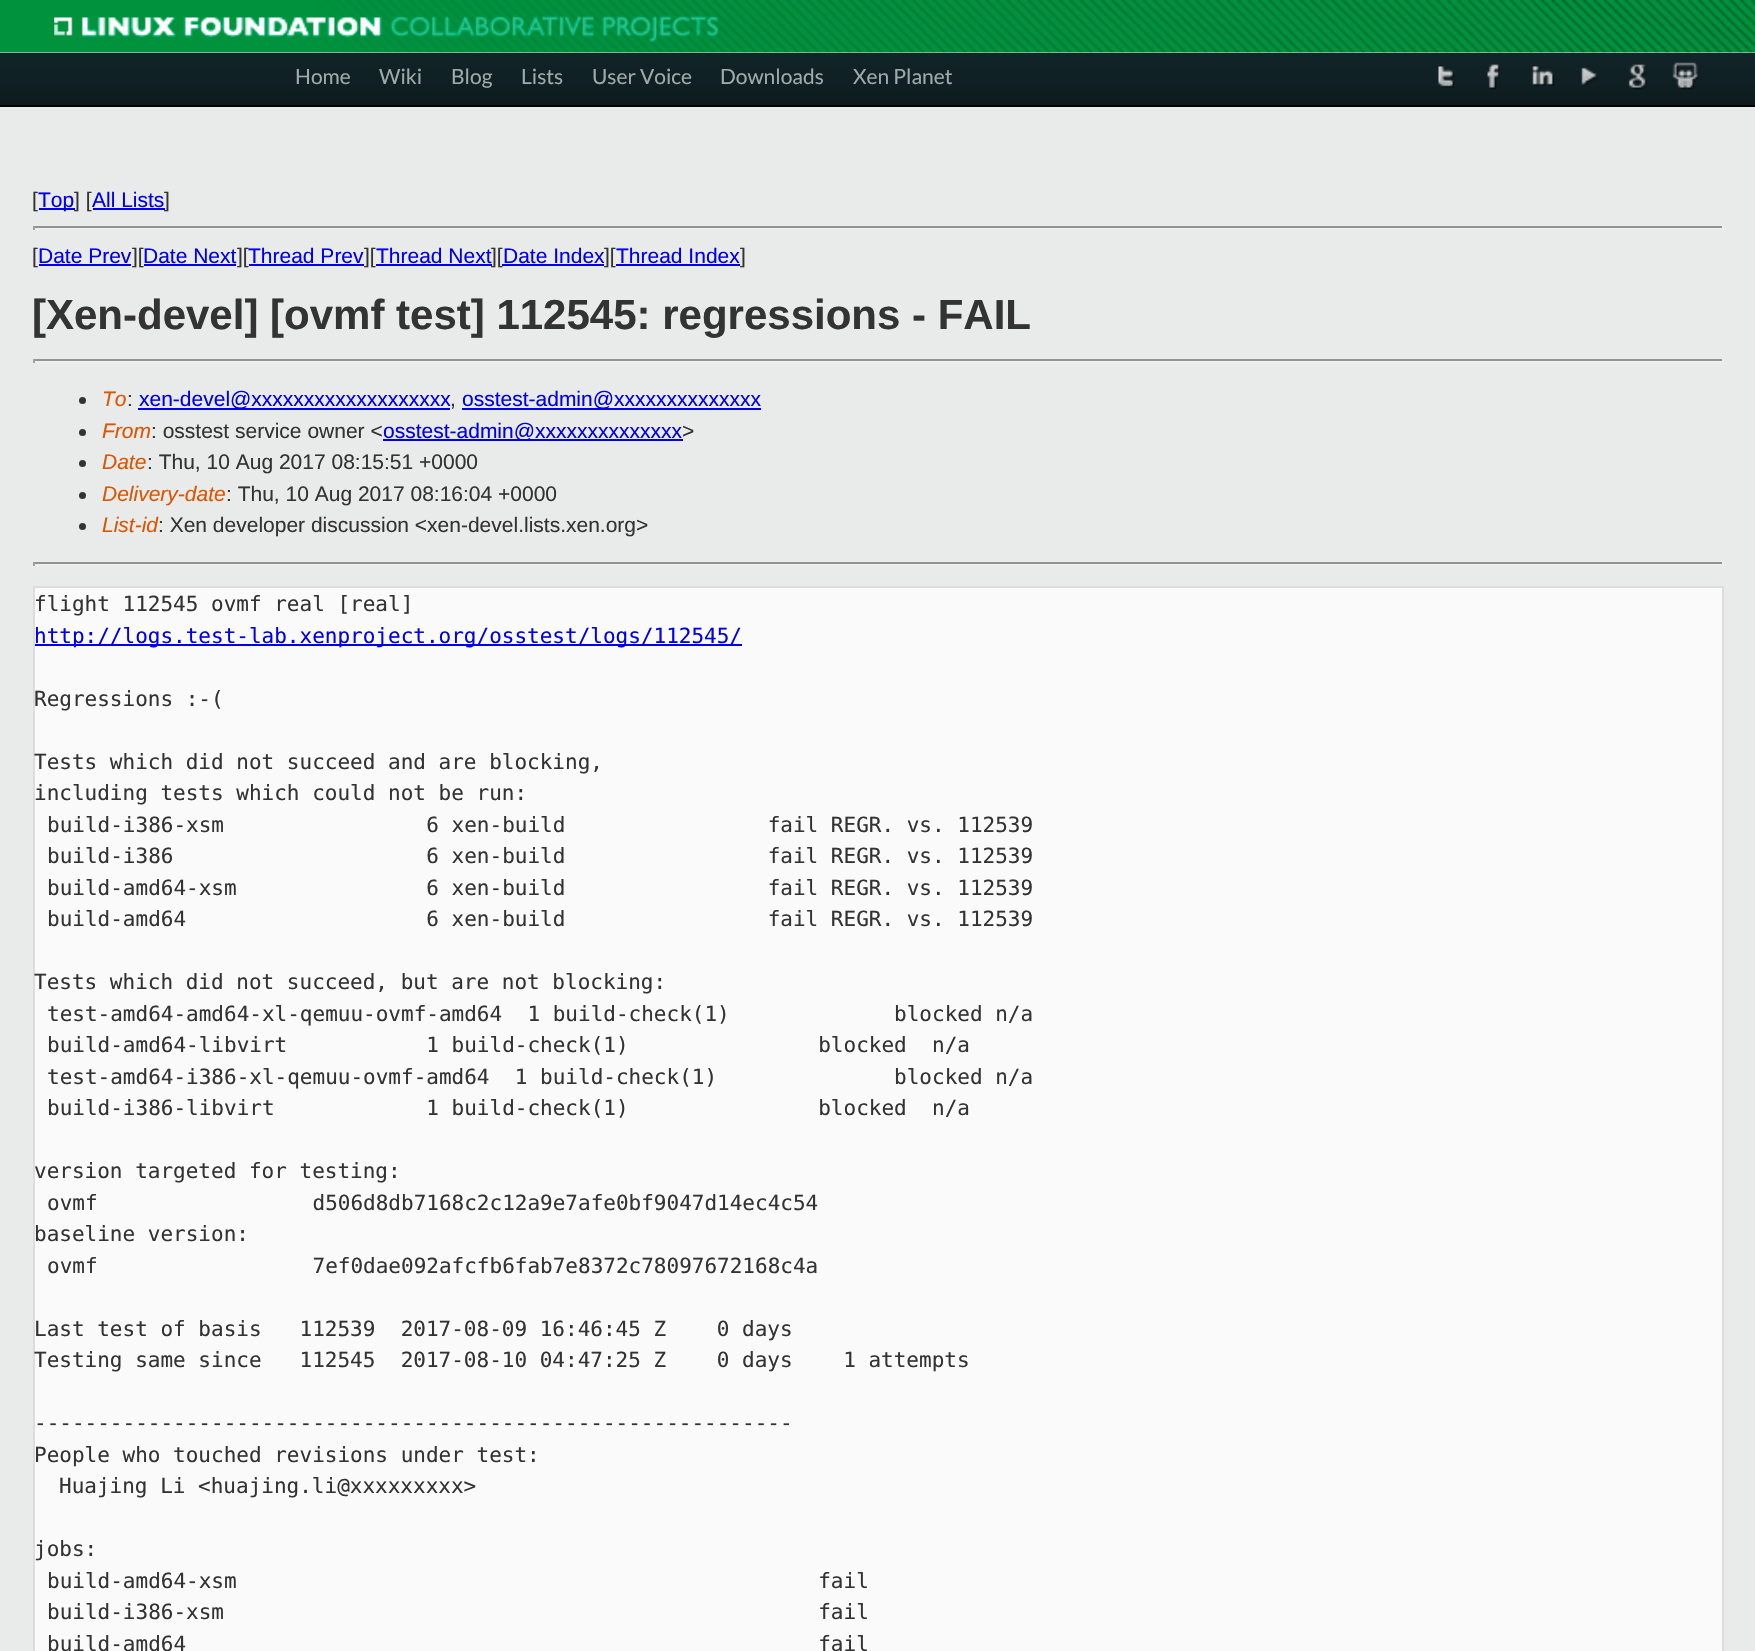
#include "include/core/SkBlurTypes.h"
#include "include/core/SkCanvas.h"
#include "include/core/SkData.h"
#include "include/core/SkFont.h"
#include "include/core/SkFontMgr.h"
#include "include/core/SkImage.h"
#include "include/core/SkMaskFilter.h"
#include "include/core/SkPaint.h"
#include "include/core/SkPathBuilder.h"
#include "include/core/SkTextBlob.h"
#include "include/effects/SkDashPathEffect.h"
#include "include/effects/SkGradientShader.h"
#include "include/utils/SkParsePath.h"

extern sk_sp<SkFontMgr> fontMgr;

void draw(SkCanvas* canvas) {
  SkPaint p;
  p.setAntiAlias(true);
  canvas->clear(SkColorSetRGB(233, 234, 234));
  canvas->drawImageRect(SkImages::DeferredFromEncodedData(SkData::MakeFromFileName("images/1.png")), SkRect::MakeLTRB(0, 0, 1755, 53), SkSamplingOptions());
  canvas->drawImageRect(SkImages::DeferredFromEncodedData(SkData::MakeFromFileName("images/2.png")), SkRect::MakeLTRB(54, 15, 718, 42), SkSamplingOptions());
  {
    const SkColor colors[] = {SkColorSetRGB(18, 37, 41), SkColorSetRGB(13, 27, 30)};
    const float stops[] = {0, 1};
    const SkPoint ends[] = {{878, 52}, {878, 105}};
    p.setShader(SkGradientShader::MakeLinear(ends, colors, stops, 2, SkTileMode::kClamp));
    p.setAlpha(255);
  }
  canvas->drawRect(SkRect::MakeLTRB(0, 53, 1755, 105), p);
  p.setShader(nullptr);
  p.setColor(SK_ColorBLACK);
  canvas->drawRect(SkRect::MakeLTRB(0, 105, 1755, 107), p);
  canvas->drawImageRect(SkImages::DeferredFromEncodedData(SkData::MakeFromFileName("images/3.png")), SkRect::MakeLTRB(1438, 66, 1455, 88), SkSamplingOptions());
  canvas->drawImageRect(SkImages::DeferredFromEncodedData(SkData::MakeFromFileName("images/4.png")), SkRect::MakeLTRB(1487, 64, 1500, 90), SkSamplingOptions());
  canvas->drawImageRect(SkImages::DeferredFromEncodedData(SkData::MakeFromFileName("images/5.png")), SkRect::MakeLTRB(1532, 66, 1555, 86), SkSamplingOptions());
  canvas->drawImageRect(SkImages::DeferredFromEncodedData(SkData::MakeFromFileName("images/6.png")), SkRect::MakeLTRB(1581, 67, 1598, 86), SkSamplingOptions());
  canvas->drawImageRect(SkImages::DeferredFromEncodedData(SkData::MakeFromFileName("images/7.png")), SkRect::MakeLTRB(1628, 64, 1647, 90), SkSamplingOptions());
  canvas->drawImageRect(SkImages::DeferredFromEncodedData(SkData::MakeFromFileName("images/8.png")), SkRect::MakeLTRB(1672, 62, 1699, 90), SkSamplingOptions());
  p.setColor(SkColorSetRGB(0, 0, 238));
  canvas->drawRect(SkRect::MakeLTRB(39, 208, 75, 210), p);
  canvas->drawRect(SkRect::MakeLTRB(93, 208, 165, 210), p);
  p.setColor(SkColorSetRGB(147, 147, 147));
  canvas->drawRect(SkRect::MakeLTRB(33, 226, 1724, 228), p);
  p.setColor(SkColorSetRGB(238, 238, 238));
  canvas->drawRect(SkRect::MakeLTRB(1722, 226, 1724, 230), p);
  canvas->drawRect(SkRect::MakeLTRB(33, 228, 1724, 230), p);
  p.setColor(SkColorSetRGB(159, 159, 159));
  canvas->drawRect(SkRect::MakeLTRB(33, 226, 35, 230), p);
  p.setColor(SkColorSetRGB(0, 0, 238));
  canvas->drawRect(SkRect::MakeLTRB(39, 264, 131, 266), p);
  canvas->drawRect(SkRect::MakeLTRB(144, 264, 236, 266), p);
  canvas->drawRect(SkRect::MakeLTRB(249, 264, 364, 266), p);
  canvas->drawRect(SkRect::MakeLTRB(376, 264, 492, 266), p);
  canvas->drawRect(SkRect::MakeLTRB(616, 264, 740, 266), p);
  p.setColor(SkColorSetRGB(147, 147, 147));
  canvas->drawRect(SkRect::MakeLTRB(33, 359, 1724, 361), p);
  p.setColor(SkColorSetRGB(238, 238, 238));
  canvas->drawRect(SkRect::MakeLTRB(1722, 359, 1724, 363), p);
  canvas->drawRect(SkRect::MakeLTRB(33, 361, 1724, 363), p);
  p.setColor(SkColorSetRGB(159, 159, 159));
  canvas->drawRect(SkRect::MakeLTRB(33, 359, 35, 363), p);
  p.setColor(SkColorSetRGB(51, 51, 51));
  canvas->drawCircle(82.5f, 400.5f, 3.5f, p);
  p.setColor(SkColorSetRGB(0, 0, 238));
  canvas->drawRect(SkRect::MakeLTRB(138, 408, 450, 410), p);
  canvas->drawRect(SkRect::MakeLTRB(462, 408, 761, 410), p);
  p.setColor(SkColorSetRGB(51, 51, 51));
  canvas->drawCircle(82.5f, 432.5f, 3.5f, p);
  p.setColor(SkColorSetRGB(0, 0, 238));
  canvas->drawRect(SkRect::MakeLTRB(383, 439, 683, 441), p);
  p.setColor(SkColorSetRGB(51, 51, 51));
  canvas->drawCircle(82.5f, 463.5f, 3.5f, p);
  canvas->drawCircle(82.5f, 495.5f, 3.5f, p);
  canvas->drawCircle(82.5f, 526.5f, 3.5f, p);
  p.setColor(SkColorSetRGB(147, 147, 147));
  canvas->drawRect(SkRect::MakeLTRB(33, 562, 1724, 564), p);
  p.setColor(SkColorSetRGB(238, 238, 238));
  canvas->drawRect(SkRect::MakeLTRB(1722, 562, 1724, 566), p);
  canvas->drawRect(SkRect::MakeLTRB(33, 564, 1724, 566), p);
  p.setColor(SkColorSetRGB(159, 159, 159));
  canvas->drawRect(SkRect::MakeLTRB(33, 562, 35, 566), p);
  p.setColor(SkColorSetRGB(250, 250, 250));
  canvas->drawRect(SkRect::MakeLTRB(34, 587, 1723, 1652), p);
  p.setStyle(SkPaint::kStroke_Style);
  p.setStrokeWidth(2);
  p.setColor(SkColorSetRGB(221, 221, 221));
  canvas->drawRect(SkRect::MakeLTRB(34, 587, 1723, 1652), p);
  p.setStyle(SkPaint::kFill_Style);
  p.setColor(SkColorSetRGB(0, 0, 238));
  canvas->drawRect(SkRect::MakeLTRB(35, 644, 742, 646), p);
  SkFont font1(fontMgr->matchFamilyStyle("Lato", SkFontStyle::Normal()), 21);
  font1.setSubpixel(true);
  p.setColor(SkColorSetRGB(161, 169, 171));
  canvas->drawString("Home", 295, 84, font1, p);
  canvas->drawString("Wiki", 379, 84, font1, p);
  canvas->drawString("Blog", 451, 84, font1, p);
  canvas->drawString("Lists", 521, 84, font1, p);
  canvas->drawString("User Voice", 592, 84, font1, p);
  canvas->drawString("Downloads", 720, 84, font1, p);
  canvas->drawString("Xen Planet", 853, 84, font1, p);
  SkFont font2(fontMgr->matchFamilyStyle("Liberation Sans", SkFontStyle::Normal()), 21);
  font2.setSubpixel(true);
  p.setColor(SkColorSetRGB(51, 51, 51));
  canvas->drawString("[", 32, 207, font2, p);
  p.setColor(SkColorSetRGB(0, 0, 238));
  canvas->drawString("Top", 38, 207, font2, p);
  p.setColor(SkColorSetRGB(51, 51, 51));
  canvas->drawString("] [", 74, 207, font2, p);
  p.setColor(SkColorSetRGB(0, 0, 238));
  canvas->drawString("All Lists", 92, 207, font2, p);
  p.setColor(SkColorSetRGB(51, 51, 51));
  canvas->drawString("]", 164, 207, font2, p);
  canvas->drawString("[", 32, 263, font2, p);
  p.setColor(SkColorSetRGB(0, 0, 238));
  canvas->drawString("Date Prev", 38, 263, font2, p);
  p.setColor(SkColorSetRGB(51, 51, 51));
  canvas->drawString("][", 132, 263, font2, p);
  p.setColor(SkColorSetRGB(0, 0, 238));
  canvas->drawString("Date Next", 143, 263, font2, p);
  p.setColor(SkColorSetRGB(51, 51, 51));
  canvas->drawString("][", 237, 263, font2, p);
  p.setColor(SkColorSetRGB(0, 0, 238));
  canvas->drawString("Thread Prev", 248, 263, font2, p);
  p.setColor(SkColorSetRGB(51, 51, 51));
  canvas->drawString("][", 364, 263, font2, p);
  p.setColor(SkColorSetRGB(0, 0, 238));
  canvas->drawString("Thread Next", 376, 263, font2, p);
  p.setColor(SkColorSetRGB(51, 51, 51));
  canvas->drawString("][", 491, 263, font2, p);
  p.setColor(SkColorSetRGB(0, 0, 238));
  canvas->drawString("Date Index", 503, 263, font2, p);
  canvas->drawRect(SkRect::MakeLTRB(502, 264, 604, 266), p);
  p.setColor(SkColorSetRGB(51, 51, 51));
  canvas->drawString("][", 604, 263, font2, p);
  p.setColor(SkColorSetRGB(0, 0, 238));
  canvas->drawString("Thread Index", 616, 263, font2, p);
  p.setColor(SkColorSetRGB(51, 51, 51));
  canvas->drawString("]", 740, 263, font2, p);
  SkFont font3(fontMgr->matchFamilyStyle("Liberation Sans", SkFontStyle::Bold()), 42);
  font3.setSubpixel(true);
  canvas->drawString("[Xen-devel] [ovmf test] 112545: regressions - FAIL", 32, 329, font3, p);
  SkFont font4(fontMgr->matchFamilyStyle("Liberation Sans", SkFontStyle::Italic()), 21);
  font4.setSubpixel(true);
  p.setColor(SkColorSetRGB(221, 85, 0));
  canvas->drawString("To", 102, 406, font4, p);
  p.setColor(SkColorSetRGB(51, 51, 51));
  canvas->drawString(":", 127, 406, font2, p);
  p.setColor(SkColorSetRGB(0, 0, 238));
  canvas->drawString("xen-devel@xxxxxxxxxxxxxxxxxxx", 139, 406, font2, p);
  canvas->drawString("osstest-admin@xxxxxxxxxxxxxx", 462, 406, font2, p);
  p.setColor(SkColorSetRGB(51, 51, 51));
  canvas->drawString(",", 450, 406, font2, p);
  p.setColor(SkColorSetRGB(221, 85, 0));
  canvas->drawString("From", 102, 438, font4, p);
  p.setColor(SkColorSetRGB(51, 51, 51));
  canvas->drawString(": osstest service owner <", 151, 438, font2, p);
  p.setColor(SkColorSetRGB(0, 0, 238));
  canvas->drawString("osstest-admin@xxxxxxxxxxxxxx", 383, 438, font2, p);
  p.setColor(SkColorSetRGB(51, 51, 51));
  canvas->drawString(">", 682, 438, font2, p);
  p.setColor(SkColorSetRGB(221, 85, 0));
  canvas->drawString("Date", 102, 469, font4, p);
  p.setColor(SkColorSetRGB(51, 51, 51));
  canvas->drawString(": Thu, 10 Aug 2017 08:15:51 +0000", 147, 469, font2, p);
  p.setColor(SkColorSetRGB(221, 85, 0));
  canvas->drawString("Delivery-date", 102, 501, font4, p);
  p.setColor(SkColorSetRGB(51, 51, 51));
  canvas->drawString(": Thu, 10 Aug 2017 08:16:04 +0000", 226, 501, font2, p);
  p.setColor(SkColorSetRGB(221, 85, 0));
  canvas->drawString("List-id", 102, 532, font4, p);
  p.setColor(SkColorSetRGB(51, 51, 51));
  canvas->drawString(": Xen developer discussion <xen-devel.lists.xen.org>", 158, 532, font2, p);
  SkFont font5(fontMgr->matchFamilyStyle("DejaVu Sans Mono", SkFontStyle::Normal()), 21);
  font5.setSubpixel(true);
  canvas->drawString("flight 112545 ovmf real [real]", 34, 611, font5, p);
  p.setColor(SkColorSetRGB(0, 0, 238));
  canvas->drawString("http://logs.test-lab.xenproject.org/osstest/logs/112545/", 34, 643, font5, p);
  p.setColor(SkColorSetRGB(51, 51, 51));
  canvas->drawString("Regressions :-(", 34, 706, font5, p);
  canvas->drawString("Tests which did not succeed and are blocking,", 34, 769, font5, p);
  canvas->drawString("including tests which could not be run:", 34, 800, font5, p);
  canvas->drawString("build-i386-xsm                6 xen-build                fail REGR. vs. 112539", 47, 832, font5, p);
  canvas->drawString("build-i386                    6 xen-build                fail REGR. vs. 112539", 47, 863, font5, p);
  canvas->drawString("build-amd64-xsm               6 xen-build                fail REGR. vs. 112539", 47, 895, font5, p);
  canvas->drawString("build-amd64                   6 xen-build                fail REGR. vs. 112539", 47, 926, font5, p);
  canvas->drawString("Tests which did not succeed, but are not blocking:", 34, 989, font5, p);
  canvas->drawString("test-amd64-amd64-xl-qemuu-ovmf-amd64  1 build-check(1)             blocked n/a", 47, 1021, font5, p);
  canvas->drawString("build-amd64-libvirt           1 build-check(1)               blocked  n/a", 47, 1052, font5, p);
  canvas->drawString("test-amd64-i386-xl-qemuu-ovmf-amd64  1 build-check(1)              blocked n/a", 47, 1084, font5, p);
  canvas->drawString("build-i386-libvirt            1 build-check(1)               blocked  n/a", 47, 1115, font5, p);
  canvas->drawString("version targeted for testing:", 34, 1178, font5, p);
  canvas->drawString("ovmf                 d506d8db7168c2c12a9e7afe0bf9047d14ec4c54", 47, 1210, font5, p);
  canvas->drawString("baseline version:", 34, 1241, font5, p);
  canvas->drawString("ovmf                 7ef0dae092afcfb6fab7e8372c78097672168c4a", 47, 1273, font5, p);
  canvas->drawString("Last test of basis   112539  2017-08-09 16:46:45 Z    0 days", 34, 1336, font5, p);
  canvas->drawString("Testing same since   112545  2017-08-10 04:47:25 Z    0 days    1 attempts", 34, 1367, font5, p);
  canvas->drawString("------------------------------------------------------------", 34, 1430, font5, p);
  canvas->drawString("People who touched revisions under test:", 34, 1462, font5, p);
  canvas->drawString("Huajing Li <huajing.li@xxxxxxxxx>", 59, 1493, font5, p);
  canvas->drawString("jobs:", 34, 1556, font5, p);
  canvas->drawString("build-amd64-xsm                                              fail", 47, 1588, font5, p);
  canvas->drawString("build-i386-xsm                                               fail", 47, 1619, font5, p);
  canvas->drawString("build-amd64                                                  fail", 47, 1651, font5, p);
}
